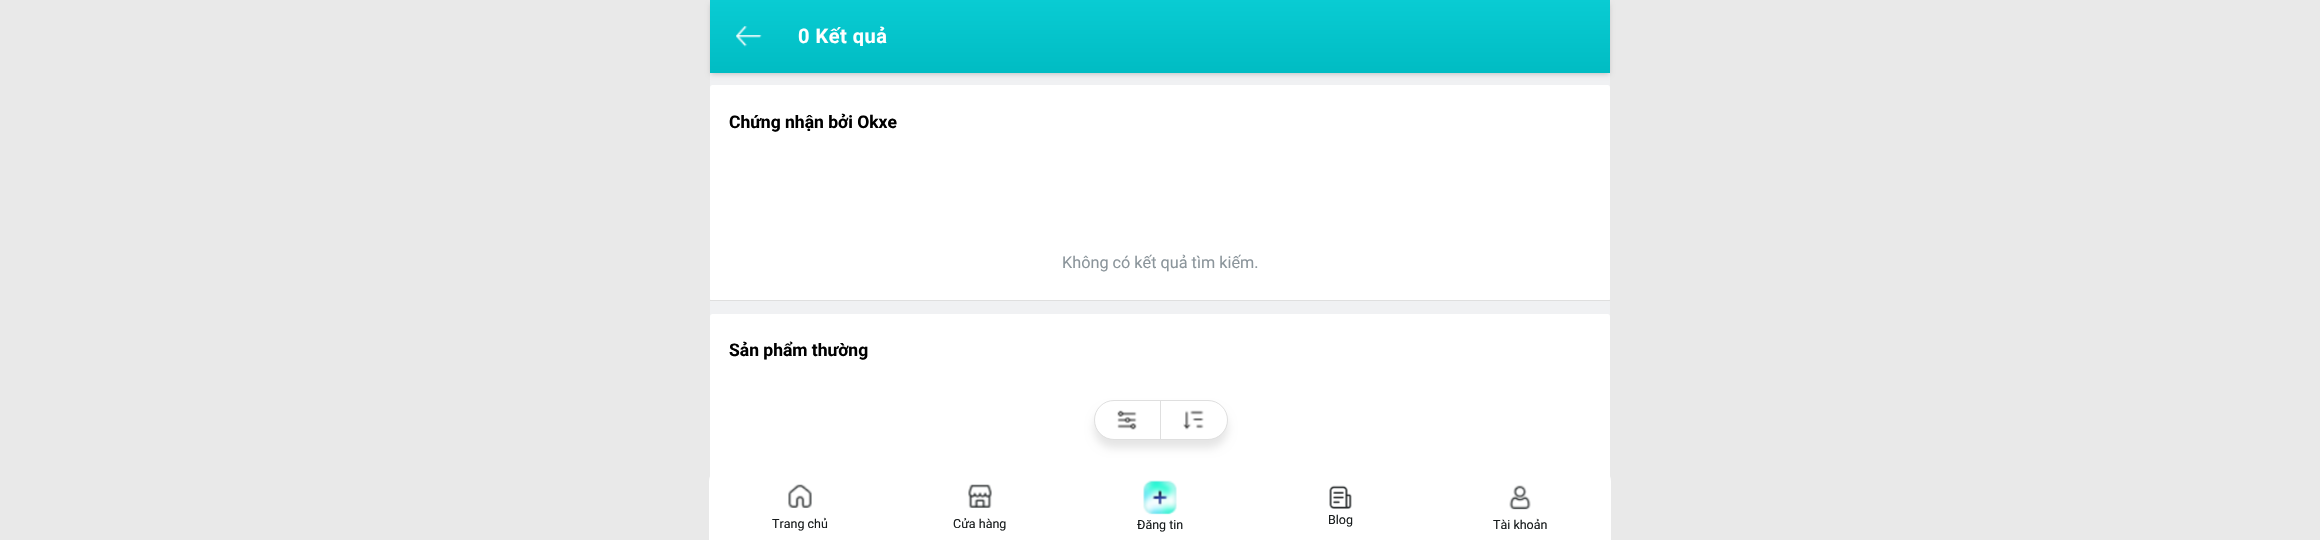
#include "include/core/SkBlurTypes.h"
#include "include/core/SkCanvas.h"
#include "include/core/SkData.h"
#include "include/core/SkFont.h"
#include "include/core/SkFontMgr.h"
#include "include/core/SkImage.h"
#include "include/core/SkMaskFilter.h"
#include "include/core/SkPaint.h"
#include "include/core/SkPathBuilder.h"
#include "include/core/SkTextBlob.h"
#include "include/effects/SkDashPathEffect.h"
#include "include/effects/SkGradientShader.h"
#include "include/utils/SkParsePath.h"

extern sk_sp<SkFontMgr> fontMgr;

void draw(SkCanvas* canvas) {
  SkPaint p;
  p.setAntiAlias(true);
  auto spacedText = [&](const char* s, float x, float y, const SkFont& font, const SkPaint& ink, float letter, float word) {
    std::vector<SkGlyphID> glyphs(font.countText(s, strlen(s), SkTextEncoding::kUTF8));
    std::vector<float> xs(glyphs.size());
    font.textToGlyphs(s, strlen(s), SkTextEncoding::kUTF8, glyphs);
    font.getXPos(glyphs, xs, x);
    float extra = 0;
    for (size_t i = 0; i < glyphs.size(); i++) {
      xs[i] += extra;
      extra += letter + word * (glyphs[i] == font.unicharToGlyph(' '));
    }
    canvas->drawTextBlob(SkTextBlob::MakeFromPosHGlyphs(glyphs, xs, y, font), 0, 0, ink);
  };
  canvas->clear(SkColorSetRGB(233, 233, 233));
  p.setColor(SkColorSetRGB(240, 241, 243));
  canvas->drawRect(SkRect::MakeLTRB(710, 73, 1610, 317), p);
  p.setColor(SkColorSetARGB(51, 0, 0, 0));
  p.setMaskFilter(SkMaskFilter::MakeBlur(kNormal_SkBlurStyle, 2.5f));
  canvas->drawRect(SkRect::MakeLTRB(711, 4, 1609, 74), p);
  p.setMaskFilter(nullptr);
  {
    const SkColor colors[] = {SkColorSetRGB(9, 204, 211), SkColorSetRGB(0, 188, 195)};
    const float stops[] = {0, 1};
    const SkPoint ends[] = {{1160, 0}, {1160, 73}};
    p.setShader(SkGradientShader::MakeLinear(ends, colors, stops, 2, SkTileMode::kClamp));
    p.setAlpha(255);
  }
  canvas->drawRect(SkRect::MakeLTRB(710, 0, 1610, 73), p);
  canvas->drawImageRect(SkImages::DeferredFromEncodedData(SkData::MakeFromFileName("images/1.png")), SkRect::MakeLTRB(736, 26, 762, 47), SkSamplingOptions());
  p.setShader(nullptr);
  p.setColor(SK_ColorWHITE);
  canvas->drawRoundRect(SkRect::MakeLTRB(710, 85, 1610, 301), 2.5f, 2.5f, p);
  p.setColor(SkColorSetRGB(223, 223, 223));
  canvas->drawRect(SkRect::MakeLTRB(710, 300, 1610, 301), p);
  p.setColor(SK_ColorWHITE);
  canvas->drawRoundRect(SkRect::MakeLTRB(710, 314, 1610, 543), 2.5f, 2.5f, p);
  p.setColor(SkColorSetARGB(26, 0, 0, 0));
  p.setMaskFilter(SkMaskFilter::MakeBlur(kNormal_SkBlurStyle, 4));
  canvas->drawRoundRect(SkRect::MakeLTRB(1094, 408, 1228, 448), 20, 20, p);
  p.setMaskFilter(nullptr);
  p.setColor(SK_ColorWHITE);
  canvas->drawRoundRect(SkRect::MakeLTRB(1094.5f, 400.5f, 1227.5f, 439.5f), 19.5f, 19.5f, p);
  p.setStyle(SkPaint::kStroke_Style);
  p.setStrokeWidth(1);
  p.setColor(SkColorSetRGB(223, 223, 223));
  canvas->drawRoundRect(SkRect::MakeLTRB(1094.5f, 400.5f, 1227.5f, 439.5f), 19.5f, 19.5f, p);
  p.setStyle(SkPaint::kFill_Style);
  canvas->drawRect(SkRect::MakeLTRB(1160, 401, 1161, 439), p);
  canvas->drawImageRect(SkImages::DeferredFromEncodedData(SkData::MakeFromFileName("images/2.png")), SkRect::MakeLTRB(1117, 410, 1137, 430), SkSamplingOptions());
  canvas->drawImageRect(SkImages::DeferredFromEncodedData(SkData::MakeFromFileName("images/3.png")), SkRect::MakeLTRB(1183, 410, 1204, 430), SkSamplingOptions());
  p.setColor(SK_ColorWHITE);
  canvas->drawPath(SkPathBuilder().moveTo(722, 468).lineTo(1598, 468).cubicTo(1605, 468, 1611, 474, 1611, 481).lineTo(1611, 540).lineTo(709, 540).lineTo(709, 481).cubicTo(709, 474, 715, 468, 722, 468).close().detach(), p);
  canvas->drawImageRect(SkImages::DeferredFromEncodedData(SkData::MakeFromFileName("images/4.png")), SkRect::MakeLTRB(788, 484, 812, 508), SkSamplingOptions());
  canvas->drawImageRect(SkImages::DeferredFromEncodedData(SkData::MakeFromFileName("images/5.png")), SkRect::MakeLTRB(968, 484, 992, 508), SkSamplingOptions());
  canvas->drawImageRect(SkImages::DeferredFromEncodedData(SkData::MakeFromFileName("images/6.png")), SkRect::MakeLTRB(1143, 480, 1177, 515), SkSamplingOptions());
  canvas->drawImageRect(SkImages::DeferredFromEncodedData(SkData::MakeFromFileName("images/7.png")), SkRect::MakeLTRB(1329, 485, 1352, 509), SkSamplingOptions());
  canvas->drawImageRect(SkImages::DeferredFromEncodedData(SkData::MakeFromFileName("images/8.png")), SkRect::MakeLTRB(1509, 485, 1531, 510), SkSamplingOptions());
  canvas->save();
  canvas->clipRect(SkRect::MakeLTRB(785, 26, 1600, 46));
  SkFont font1(fontMgr->matchFamilyStyle("Roboto", SkFontStyle::Bold()), 20);
  font1.setSubpixel(true);
  spacedText("0 Kết quả", 798, 43, font1, p, 0.5f, 0);
  canvas->restore();
  SkFont font2(fontMgr->matchFamilyStyle("Roboto", SkFontStyle::Bold()), 17.5f);
  font2.setSubpixel(true);
  p.setColor(SK_ColorBLACK);
  canvas->drawString("Chứng nhận bởi Okxe", 729, 128, font2, p);
  SkFont font3(fontMgr->matchFamilyStyle("Roboto", SkFontStyle::Normal()), 16.25f);
  font3.setSubpixel(true);
  p.setColor(SkColorSetRGB(139, 149, 155));
  canvas->drawString("Không có kết quả tìm kiếm.", 1062, 268, font3, p);
  p.setColor(SK_ColorBLACK);
  canvas->drawString("Sản phẩm thường", 729, 356, font2, p);
  SkFont font4(fontMgr->matchFamilyStyle("Roboto", SkFontStyle::Normal()), 12.5f);
  font4.setSubpixel(true);
  p.setColor(SkColorSetRGB(23, 27, 28));
  canvas->drawString("Trang chủ", 772, 528, font4, p);
  canvas->drawString("Cửa hàng", 953, 528, font4, p);
  canvas->drawString("Đăng tin", 1137, 529, font4, p);
  canvas->drawString("Blog", 1328, 524, font4, p);
  canvas->drawString("Tài khoản", 1493, 529, font4, p);
}
